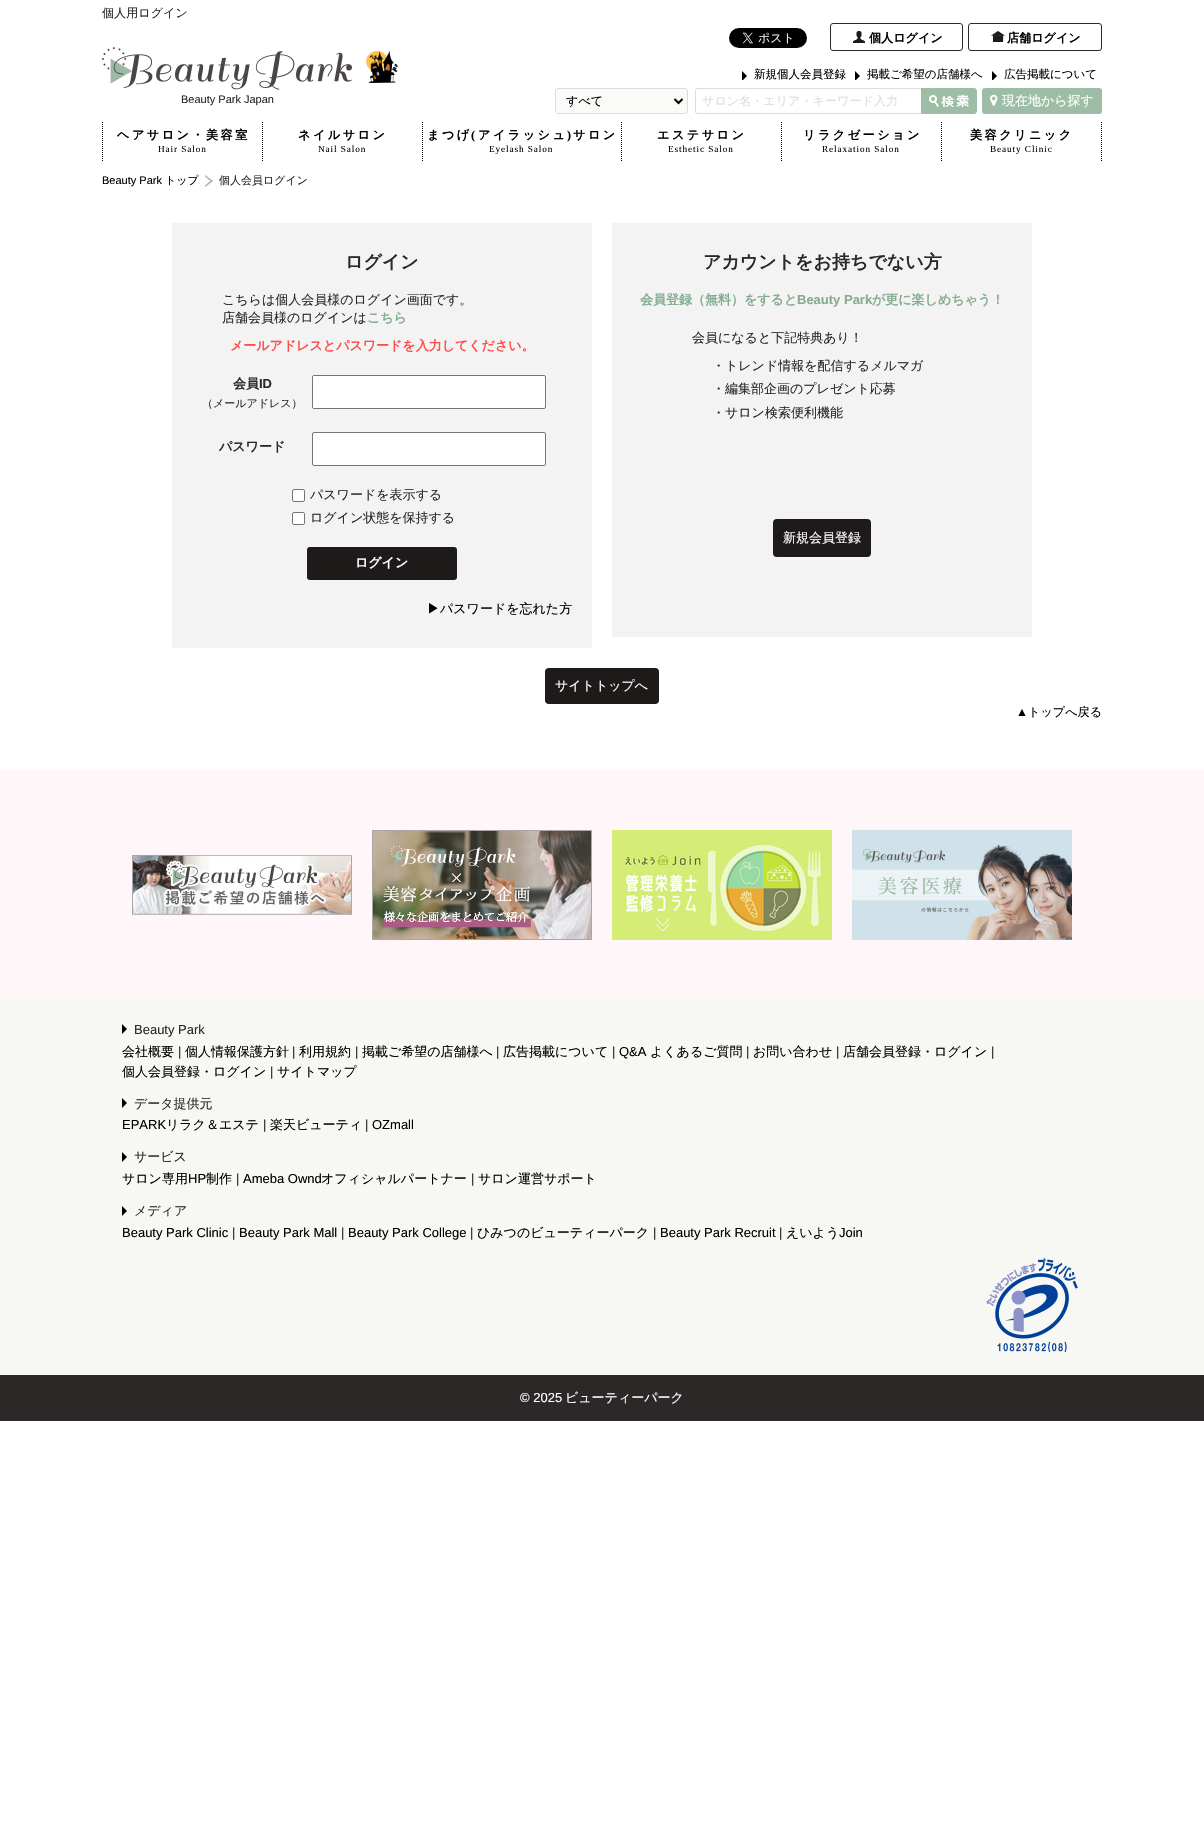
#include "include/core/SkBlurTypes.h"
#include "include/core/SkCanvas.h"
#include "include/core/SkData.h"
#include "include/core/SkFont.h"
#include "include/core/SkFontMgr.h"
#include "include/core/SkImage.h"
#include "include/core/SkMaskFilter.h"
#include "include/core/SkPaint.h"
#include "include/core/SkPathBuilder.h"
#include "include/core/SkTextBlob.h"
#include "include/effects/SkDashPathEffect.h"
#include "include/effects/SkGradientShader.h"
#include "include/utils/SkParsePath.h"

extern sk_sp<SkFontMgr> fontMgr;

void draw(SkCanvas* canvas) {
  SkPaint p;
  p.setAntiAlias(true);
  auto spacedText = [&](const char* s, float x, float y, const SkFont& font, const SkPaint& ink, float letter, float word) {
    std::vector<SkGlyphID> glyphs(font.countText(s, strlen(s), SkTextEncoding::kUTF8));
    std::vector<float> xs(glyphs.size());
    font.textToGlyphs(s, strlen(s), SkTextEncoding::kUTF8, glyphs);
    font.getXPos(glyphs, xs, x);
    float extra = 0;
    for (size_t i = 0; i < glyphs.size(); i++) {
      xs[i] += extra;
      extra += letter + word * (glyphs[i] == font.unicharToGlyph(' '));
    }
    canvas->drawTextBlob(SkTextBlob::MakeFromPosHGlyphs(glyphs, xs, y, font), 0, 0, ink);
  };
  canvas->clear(SK_ColorWHITE);
  canvas->drawImageRect(SkImages::DeferredFromEncodedData(SkData::MakeFromFileName("images/1.png")), SkRect::MakeLTRB(729, 28, 807, 48), SkSamplingOptions());
  p.setStyle(SkPaint::kStroke_Style);
  p.setStrokeWidth(1);
  p.setColor(SkColorSetRGB(44, 40, 39));
  canvas->drawRoundRect(SkRect::MakeLTRB(830.5f, 23.5f, 962.5f, 50.5f), 2.5f, 2.5f, p);
  canvas->drawImageRect(SkImages::DeferredFromEncodedData(SkData::MakeFromFileName("images/2.png")), SkRect::MakeLTRB(853, 31, 865, 43), SkSamplingOptions());
  canvas->drawRoundRect(SkRect::MakeLTRB(968.5f, 23.5f, 1101.5f, 50.5f), 2.5f, 2.5f, p);
  canvas->drawImageRect(SkImages::DeferredFromEncodedData(SkData::MakeFromFileName("images/3.png")), SkRect::MakeLTRB(991, 31, 1005, 42), SkSamplingOptions());
  canvas->drawImageRect(SkImages::DeferredFromEncodedData(SkData::MakeFromFileName("images/4.png")), SkRect::MakeLTRB(742, 71, 747, 80), SkSamplingOptions());
  canvas->drawImageRect(SkImages::DeferredFromEncodedData(SkData::MakeFromFileName("images/4.png")), SkRect::MakeLTRB(855, 71, 860, 80), SkSamplingOptions());
  canvas->drawImageRect(SkImages::DeferredFromEncodedData(SkData::MakeFromFileName("images/4.png")), SkRect::MakeLTRB(992, 71, 997, 80), SkSamplingOptions());
  canvas->drawImageRect(SkImages::DeferredFromEncodedData(SkData::MakeFromFileName("images/5.png")), SkRect::MakeLTRB(102, 47, 352, 90), SkSamplingOptions());
  canvas->drawImageRect(SkImages::DeferredFromEncodedData(SkData::MakeFromFileName("images/6.png")), SkRect::MakeLTRB(366, 51, 398, 83), SkSamplingOptions());
  p.setStyle(SkPaint::kFill_Style);
  p.setColor(SkColorSetRGB(250, 250, 248));
  canvas->drawRoundRect(SkRect::MakeLTRB(555.5f, 88.5f, 687.5f, 113.5f), 2.5f, 2.5f, p);
  p.setStyle(SkPaint::kStroke_Style);
  p.setColor(SkColorSetRGB(221, 221, 221));
  canvas->drawRoundRect(SkRect::MakeLTRB(555.5f, 88.5f, 687.5f, 113.5f), 2.5f, 2.5f, p);
  p.setStrokeWidth(2);
  p.setColor(SK_ColorBLACK);
  canvas->drawPath(SkPathBuilder().moveTo(674.5f, 99).lineTo(678.5f, 103).lineTo(682.5f, 99).detach(), p);
  p.setStyle(SkPaint::kFill_Style);
  p.setColor(SkColorSetRGB(221, 221, 221));
  canvas->drawPath(SkPathBuilder(SkPathFillType::kEvenOdd).moveTo(698, 88).lineTo(925, 88).cubicTo(927, 88, 928, 89, 928, 91).lineTo(928, 111).cubicTo(928, 113, 927, 114, 925, 114).lineTo(698, 114).cubicTo(696, 114, 695, 113, 695, 111).lineTo(695, 91).cubicTo(695, 89, 696, 88, 698, 88).close().moveTo(698, 89).lineTo(925, 89).cubicTo(927, 89, 928, 90, 928, 91).lineTo(928, 111).cubicTo(928, 112, 927, 113, 925, 113).lineTo(698, 113).cubicTo(697, 113, 696, 112, 696, 111).lineTo(696, 91).cubicTo(696, 90, 697, 89, 698, 89).close().detach(), p);
  p.setColor(SkColorSetRGB(157, 189, 166));
  canvas->drawPath(SkPathBuilder().moveTo(921, 88).lineTo(974, 88).cubicTo(975.5f, 88, 977, 89.5f, 977, 91).lineTo(977, 111).cubicTo(977, 112.5f, 975.5f, 114, 974, 114).lineTo(921, 114).close().detach(), p);
  canvas->drawImageRect(SkImages::DeferredFromEncodedData(SkData::MakeFromFileName("images/7.png")), SkRect::MakeLTRB(929, 94, 969, 107), SkSamplingOptions());
  canvas->drawRoundRect(SkRect::MakeLTRB(982, 88, 1102, 114), 3, 3, p);
  canvas->drawImageRect(SkImages::DeferredFromEncodedData(SkData::MakeFromFileName("images/8.png")), SkRect::MakeLTRB(990, 94, 998, 106), SkSamplingOptions());
  p.setStyle(SkPaint::kStroke_Style);
  p.setStrokeWidth(1);
  p.setColor(SK_ColorBLACK);
  p.setPathEffect(SkDashPathEffect::Make({{1, 1}}, 0));
  canvas->drawPath(SkPathBuilder().moveTo(102.5f, 122).lineTo(102.5f, 162).detach(), p);
  p.setPathEffect(nullptr);
  p.setPathEffect(SkDashPathEffect::Make({{1, 1}}, 0));
  canvas->drawPath(SkPathBuilder().moveTo(262.5f, 122).lineTo(262.5f, 162).detach(), p);
  p.setPathEffect(nullptr);
  p.setPathEffect(SkDashPathEffect::Make({{1, 1}}, 0));
  canvas->drawPath(SkPathBuilder().moveTo(422.5f, 122).lineTo(422.5f, 162).detach(), p);
  p.setPathEffect(nullptr);
  p.setPathEffect(SkDashPathEffect::Make({{1, 1}}, 0));
  canvas->drawPath(SkPathBuilder().moveTo(621.5f, 122).lineTo(621.5f, 162).detach(), p);
  p.setPathEffect(nullptr);
  p.setPathEffect(SkDashPathEffect::Make({{1, 1}}, 0));
  canvas->drawPath(SkPathBuilder().moveTo(781.5f, 122).lineTo(781.5f, 162).detach(), p);
  p.setPathEffect(nullptr);
  p.setPathEffect(SkDashPathEffect::Make({{1, 1}}, 0));
  canvas->drawPath(SkPathBuilder().moveTo(941.5f, 122).lineTo(941.5f, 162).detach(), p);
  p.setPathEffect(nullptr);
  p.setPathEffect(SkDashPathEffect::Make({{1, 1}}, 0));
  canvas->drawPath(SkPathBuilder().moveTo(1101.5f, 122).lineTo(1101.5f, 162).detach(), p);
  p.setPathEffect(nullptr);
  canvas->drawImageRect(SkImages::DeferredFromEncodedData(SkData::MakeFromFileName("images/9.png")), SkRect::MakeLTRB(205, 175, 213, 187), SkSamplingOptions());
  p.setStyle(SkPaint::kFill_Style);
  p.setColor(SkColorSetRGB(243, 243, 243));
  canvas->drawRect(SkRect::MakeLTRB(172, 223, 592, 648), p);
  p.setColor(SK_ColorWHITE);
  canvas->drawRoundRect(SkRect::MakeLTRB(312.5f, 375.5f, 545.5f, 408.5f), 1.5f, 1.5f, p);
  p.setStyle(SkPaint::kStroke_Style);
  p.setColor(SkColorSetRGB(118, 118, 118));
  canvas->drawRoundRect(SkRect::MakeLTRB(312.5f, 375.5f, 545.5f, 408.5f), 1.5f, 1.5f, p);
  p.setStyle(SkPaint::kFill_Style);
  p.setColor(SK_ColorWHITE);
  canvas->drawRoundRect(SkRect::MakeLTRB(312.5f, 432.5f, 545.5f, 465.5f), 1.5f, 1.5f, p);
  p.setStyle(SkPaint::kStroke_Style);
  p.setColor(SkColorSetRGB(118, 118, 118));
  canvas->drawRoundRect(SkRect::MakeLTRB(312.5f, 432.5f, 545.5f, 465.5f), 1.5f, 1.5f, p);
  p.setStyle(SkPaint::kFill_Style);
  p.setColor(SK_ColorWHITE);
  canvas->drawRoundRect(SkRect::MakeLTRB(292.5f, 489.5f, 304.5f, 501.5f), 1.5f, 1.5f, p);
  p.setStyle(SkPaint::kStroke_Style);
  p.setColor(SkColorSetRGB(118, 118, 118));
  canvas->drawRoundRect(SkRect::MakeLTRB(292.5f, 489.5f, 304.5f, 501.5f), 1.5f, 1.5f, p);
  p.setStyle(SkPaint::kFill_Style);
  p.setColor(SK_ColorWHITE);
  canvas->drawRoundRect(SkRect::MakeLTRB(292.5f, 512.5f, 304.5f, 524.5f), 1.5f, 1.5f, p);
  p.setStyle(SkPaint::kStroke_Style);
  p.setColor(SkColorSetRGB(118, 118, 118));
  canvas->drawRoundRect(SkRect::MakeLTRB(292.5f, 512.5f, 304.5f, 524.5f), 1.5f, 1.5f, p);
  p.setStyle(SkPaint::kFill_Style);
  p.setColor(SkColorSetRGB(30, 26, 26));
  canvas->drawRoundRect(SkRect::MakeLTRB(307, 547, 457, 580), 3, 3, p);
  p.setColor(SkColorSetRGB(243, 243, 243));
  canvas->drawRect(SkRect::MakeLTRB(612, 223, 1032, 637), p);
  p.setColor(SkColorSetRGB(30, 26, 26));
  canvas->drawRoundRect(SkRect::MakeLTRB(773, 519, 871, 557), 4, 4, p);
  canvas->drawRoundRect(SkRect::MakeLTRB(545, 668, 659, 704), 4, 4, p);
  p.setColor(SkColorSetRGB(247, 247, 244));
  canvas->drawRect(SkRect::MakeLTRB(0, 1000, 1204, 1375), p);
  p.setColor(SkColorSetRGB(254, 246, 249));
  canvas->drawRect(SkRect::MakeLTRB(0, 770, 1204, 1000), p);
  canvas->drawImageRect(SkImages::DeferredFromEncodedData(SkData::MakeFromFileName("images/10.png")), SkRect::MakeLTRB(132, 855, 352, 915), SkSamplingOptions());
  canvas->drawImageRect(SkImages::DeferredFromEncodedData(SkData::MakeFromFileName("images/11.png")), SkRect::MakeLTRB(372, 830, 592, 940), SkSamplingOptions());
  canvas->drawImageRect(SkImages::DeferredFromEncodedData(SkData::MakeFromFileName("images/12.png")), SkRect::MakeLTRB(612, 830, 832, 940), SkSamplingOptions());
  canvas->drawImageRect(SkImages::DeferredFromEncodedData(SkData::MakeFromFileName("images/13.png")), SkRect::MakeLTRB(852, 830, 1072, 940), SkSamplingOptions());
  canvas->drawImageRect(SkImages::DeferredFromEncodedData(SkData::MakeFromFileName("images/14.png")), SkRect::MakeLTRB(122, 1024, 127, 1034), SkSamplingOptions());
  canvas->drawImageRect(SkImages::DeferredFromEncodedData(SkData::MakeFromFileName("images/14.png")), SkRect::MakeLTRB(122, 1098, 127, 1108), SkSamplingOptions());
  canvas->drawImageRect(SkImages::DeferredFromEncodedData(SkData::MakeFromFileName("images/14.png")), SkRect::MakeLTRB(122, 1152, 127, 1162), SkSamplingOptions());
  canvas->drawImageRect(SkImages::DeferredFromEncodedData(SkData::MakeFromFileName("images/14.png")), SkRect::MakeLTRB(122, 1206, 127, 1216), SkSamplingOptions());
  canvas->drawImageRect(SkImages::DeferredFromEncodedData(SkData::MakeFromFileName("images/15.png")), SkRect::MakeLTRB(986, 1258, 1078, 1352), SkSamplingOptions());
  p.setColor(SkColorSetRGB(43, 40, 39));
  canvas->drawRect(SkRect::MakeLTRB(0, 1375, 1204, 1421), p);
  SkFont font1(fontMgr->matchFamilyStyle("WenQuanYi Zen Hei", SkFontStyle(500, SkFontStyle::kNormal_Width, SkFontStyle::kUpright_Slant)), 12.1f);
  font1.setSubpixel(true);
  canvas->drawString("個人用ログイン", 102, 17, font1, p);
  SkFont font2(fontMgr->matchFamilyStyle("WenQuanYi Zen Hei", SkFontStyle::Bold()), 12.1f);
  font2.setSubpixel(true);
  p.setColor(SK_ColorBLACK);
  canvas->drawString("個人ログイン", 869, 42, font2, p);
  canvas->drawString("店舗ログイン", 1007, 42, font2, p);
  SkFont font3(fontMgr->matchFamilyStyle("WenQuanYi Zen Hei", SkFontStyle(500, SkFontStyle::kNormal_Width, SkFontStyle::kUpright_Slant)), 11.5f);
  font3.setSubpixel(true);
  canvas->drawString("新規個人会員登録", 754, 78, font3, p);
  canvas->drawString("掲載ご希望の店舗様へ", 867, 78, font3, p);
  canvas->drawString("広告掲載について", 1004, 78, font3, p);
  SkFont font4(fontMgr->matchFamilyStyle("Liberation Sans", SkFontStyle::Normal()), 11);
  font4.setSubpixel(true);
  p.setColor(SkColorSetRGB(43, 40, 39));
  canvas->drawString("Beauty Park Japan", 181, 103, font4, p);
  p.setColor(SK_ColorBLACK);
  canvas->drawString("すべて", 566, 105, font1, p);
  p.setColor(SkColorSetRGB(221, 221, 221));
  canvas->drawString("サロン名・エリア・キーワード入力", 702, 105, font1, p);
  SkFont font5(fontMgr->matchFamilyStyle("WenQuanYi Zen Hei", SkFontStyle(500, SkFontStyle::kNormal_Width, SkFontStyle::kUpright_Slant)), 13);
  font5.setSubpixel(true);
  p.setColor(SK_ColorWHITE);
  canvas->drawString("現在地から探す", 1002, 105, font5, p);
  p.setColor(SK_ColorBLACK);
  spacedText("ヘアサロン・美容室", 117, 139, font2, p, 2.5f, 0);
  SkFont font6(fontMgr->matchFamilyStyle("Liberation Serif", SkFontStyle::Normal()), 9.25f);
  font6.setSubpixel(true);
  spacedText("Hair Salon", 158, 152, font6, p, 0.9f, 0);
  spacedText("ネイルサロン", 298, 139, font2, p, 2.5f, 0);
  spacedText("Nail Salon", 318, 152, font6, p, 0.9f, 0);
  spacedText("まつげ", 427, 139, font2, p, 2.5f, 0);
  SkFont font7(fontMgr->matchFamilyStyle("Liberation Serif", SkFontStyle::Bold()), 12.1f);
  font7.setSubpixel(true);
  spacedText("(", 471, 139, font7, p, 2.5f, 0);
  spacedText("アイラッシュ", 478, 139, font2, p, 2.5f, 0);
  spacedText(")", 567, 139, font7, p, 2.5f, 0);
  spacedText("サロン", 573, 139, font2, p, 2.5f, 0);
  spacedText("Eyelash Salon", 489, 152, font6, p, 0.9f, 0);
  spacedText("エステサロン", 657, 139, font2, p, 2.5f, 0);
  spacedText("Esthetic Salon", 668, 152, font6, p, 0.9f, 0);
  spacedText("リラクゼーション", 803, 139, font2, p, 2.5f, 0);
  spacedText("Relaxation Salon", 822, 152, font6, p, 0.9f, 0);
  spacedText("美容クリニック", 970, 139, font2, p, 2.5f, 0);
  spacedText("Beauty Clinic", 990, 152, font6, p, 0.9f, 0);
  canvas->drawString("Beauty Park", 102, 184, font4, p);
  SkFont font8(fontMgr->matchFamilyStyle("WenQuanYi Zen Hei", SkFontStyle(500, SkFontStyle::kNormal_Width, SkFontStyle::kUpright_Slant)), 11);
  font8.setSubpixel(true);
  canvas->drawString("トップ", 165, 184, font8, p);
  p.setColor(SkColorSetRGB(43, 40, 39));
  canvas->drawString("個人会員ログイン", 219, 184, font8, p);
  SkFont font9(fontMgr->matchFamilyStyle("WenQuanYi Zen Hei", SkFontStyle::Bold()), 18);
  font9.setSubpixel(true);
  canvas->drawString("ログイン", 345, 268, font9, p);
  canvas->drawString("こちらは個人会員様のログイン画面です。", 222, 304, font5, p);
  canvas->drawString("店舗会員様のログインは", 222, 322, font5, p);
  SkFont font10(fontMgr->matchFamilyStyle("WenQuanYi Zen Hei", SkFontStyle::Bold()), 13);
  font10.setSubpixel(true);
  p.setColor(SkColorSetRGB(133, 173, 144));
  canvas->drawString("こちら", 367, 322, font10, p);
  p.setColor(SkColorSetRGB(255, 76, 74));
  canvas->drawString("メールアドレスとパスワードを入力してください。", 230, 350, font10, p);
  p.setColor(SkColorSetRGB(43, 40, 39));
  canvas->drawString("会員", 233, 388, font10, p);
  SkFont font11(fontMgr->matchFamilyStyle("Liberation Sans", SkFontStyle::Bold()), 13);
  font11.setSubpixel(true);
  canvas->drawString("ID", 259, 388, font11, p);
  canvas->drawString("（メールアドレス）", 202, 407, font8, p);
  canvas->drawString("パスワード", 219, 451, font10, p);
  canvas->drawString("パスワードを表示する", 310, 499, font5, p);
  canvas->drawString("ログイン状態を保持する", 310, 522, font5, p);
  p.setColor(SK_ColorWHITE);
  canvas->drawString("ログイン", 355, 567, font10, p);
  p.setColor(SK_ColorBLACK);
  canvas->drawString("▶パスワードを忘れた方", 427, 613, font5, p);
  p.setColor(SkColorSetRGB(43, 40, 39));
  canvas->drawString("アカウントをお持ちでない方", 703, 268, font9, p);
  p.setColor(SkColorSetRGB(133, 173, 144));
  canvas->drawString("会員登録（無料）をすると", 640, 304, font10, p);
  canvas->drawString("Beauty Park", 797, 304, font11, p);
  canvas->drawString("が更に楽しめちゃう！", 872, 304, font10, p);
  p.setColor(SkColorSetRGB(43, 40, 39));
  canvas->drawString("会員になると下記特典あり！", 692, 342, font5, p);
  canvas->drawString("・トレンド情報を配信するメルマガ", 712, 370, font5, p);
  canvas->drawString("・編集部企画のプレゼント応募", 712, 393, font5, p);
  canvas->drawString("・サロン検索便利機能", 712, 417, font5, p);
  p.setColor(SK_ColorWHITE);
  canvas->drawString("新規会員登録", 783, 542, font5, p);
  canvas->drawString("サイトトップへ", 555, 690, font5, p);
  SkFont font12(fontMgr->matchFamilyStyle("Liberation Sans", SkFontStyle::Normal()), 12.1f);
  font12.setSubpixel(true);
  p.setColor(SK_ColorBLACK);
  canvas->drawString("▲", 1016, 716, font12, p);
  canvas->drawString("トップへ戻る", 1028, 716, font1, p);
  SkFont font13(fontMgr->matchFamilyStyle("Liberation Sans", SkFontStyle::Normal()), 13);
  font13.setSubpixel(true);
  p.setColor(SkColorSetRGB(43, 40, 39));
  canvas->drawString("Beauty Park", 134, 1034, font13, p);
  p.setColor(SK_ColorBLACK);
  canvas->drawString("会社概要", 122, 1056, font5, p);
  p.setColor(SkColorSetRGB(43, 40, 39));
  canvas->drawString("|", 178, 1056, font13, p);
  p.setColor(SK_ColorBLACK);
  canvas->drawString("個人情報保護方針", 185, 1056, font5, p);
  p.setColor(SkColorSetRGB(43, 40, 39));
  canvas->drawString("|", 292, 1056, font13, p);
  p.setColor(SK_ColorBLACK);
  canvas->drawString("利用規約", 299, 1056, font5, p);
  p.setColor(SkColorSetRGB(43, 40, 39));
  canvas->drawString("|", 355, 1056, font13, p);
  p.setColor(SK_ColorBLACK);
  canvas->drawString("掲載ご希望の店舗様へ", 362, 1056, font5, p);
  p.setColor(SkColorSetRGB(43, 40, 39));
  canvas->drawString("|", 496, 1056, font13, p);
  p.setColor(SK_ColorBLACK);
  canvas->drawString("広告掲載について", 503, 1056, font5, p);
  p.setColor(SkColorSetRGB(43, 40, 39));
  canvas->drawString("|", 612, 1056, font13, p);
  p.setColor(SK_ColorBLACK);
  canvas->drawString("Q&A", 619, 1056, font13, p);
  canvas->drawString("よくあるご質問", 650, 1056, font5, p);
  p.setColor(SkColorSetRGB(43, 40, 39));
  canvas->drawString("|", 746, 1056, font13, p);
  p.setColor(SK_ColorBLACK);
  canvas->drawString("お問い合わせ", 753, 1056, font5, p);
  p.setColor(SkColorSetRGB(43, 40, 39));
  canvas->drawString("|", 836, 1056, font13, p);
  p.setColor(SK_ColorBLACK);
  canvas->drawString("店舗会員登録・ログイン", 843, 1056, font5, p);
  p.setColor(SkColorSetRGB(43, 40, 39));
  canvas->drawString("|", 991, 1056, font13, p);
  p.setColor(SK_ColorBLACK);
  canvas->drawString("個人会員登録・ログイン", 122, 1076, font5, p);
  p.setColor(SkColorSetRGB(43, 40, 39));
  canvas->drawString("|", 270, 1076, font13, p);
  p.setColor(SK_ColorBLACK);
  canvas->drawString("サイトマップ", 277, 1076, font5, p);
  p.setColor(SkColorSetRGB(43, 40, 39));
  canvas->drawString("データ提供元", 134, 1108, font5, p);
  p.setColor(SK_ColorBLACK);
  canvas->drawString("EPARK", 122, 1129, font13, p);
  canvas->drawString("リラク＆エステ", 166, 1129, font5, p);
  p.setColor(SkColorSetRGB(43, 40, 39));
  canvas->drawString("|", 263, 1129, font13, p);
  p.setColor(SK_ColorBLACK);
  canvas->drawString("楽天ビューティ", 270, 1129, font5, p);
  p.setColor(SkColorSetRGB(43, 40, 39));
  canvas->drawString("|", 365, 1129, font13, p);
  p.setColor(SK_ColorBLACK);
  canvas->drawString("OZmall", 372, 1129, font13, p);
  p.setColor(SkColorSetRGB(43, 40, 39));
  canvas->drawString("サービス", 134, 1161, font5, p);
  p.setColor(SK_ColorBLACK);
  canvas->drawString("サロン専用", 122, 1183, font5, p);
  canvas->drawString("HP", 188, 1183, font13, p);
  canvas->drawString("制作", 206, 1183, font5, p);
  p.setColor(SkColorSetRGB(43, 40, 39));
  canvas->drawString("|", 236, 1183, font13, p);
  p.setColor(SK_ColorBLACK);
  canvas->drawString("Ameba Ownd", 243, 1183, font13, p);
  canvas->drawString("オフィシャルパートナー", 321, 1183, font5, p);
  p.setColor(SkColorSetRGB(43, 40, 39));
  canvas->drawString("|", 471, 1183, font13, p);
  p.setColor(SK_ColorBLACK);
  canvas->drawString("サロン運営サポート", 478, 1183, font5, p);
  p.setColor(SkColorSetRGB(43, 40, 39));
  canvas->drawString("メディア", 134, 1215, font5, p);
  p.setColor(SK_ColorBLACK);
  canvas->drawString("Beauty Park Clinic", 122, 1237, font13, p);
  p.setColor(SkColorSetRGB(43, 40, 39));
  canvas->drawString("|", 232, 1237, font13, p);
  p.setColor(SK_ColorBLACK);
  canvas->drawString("Beauty Park Mall", 239, 1237, font13, p);
  p.setColor(SkColorSetRGB(43, 40, 39));
  canvas->drawString("|", 341, 1237, font13, p);
  p.setColor(SK_ColorBLACK);
  canvas->drawString("Beauty Park College", 348, 1237, font13, p);
  p.setColor(SkColorSetRGB(43, 40, 39));
  canvas->drawString("|", 470, 1237, font13, p);
  p.setColor(SK_ColorBLACK);
  canvas->drawString("ひみつのビューティーパーク", 477, 1237, font5, p);
  p.setColor(SkColorSetRGB(43, 40, 39));
  canvas->drawString("|", 653, 1237, font13, p);
  p.setColor(SK_ColorBLACK);
  canvas->drawString("Beauty Park Recruit", 660, 1237, font13, p);
  p.setColor(SkColorSetRGB(43, 40, 39));
  canvas->drawString("|", 779, 1237, font13, p);
  p.setColor(SK_ColorBLACK);
  canvas->drawString("えいよう", 786, 1237, font5, p);
  canvas->drawString("Join", 839, 1237, font13, p);
  p.setColor(SK_ColorWHITE);
  canvas->drawString("© 2025", 520, 1402, font13, p);
  canvas->drawString("ビューティーパーク", 565, 1402, font5, p);
}
